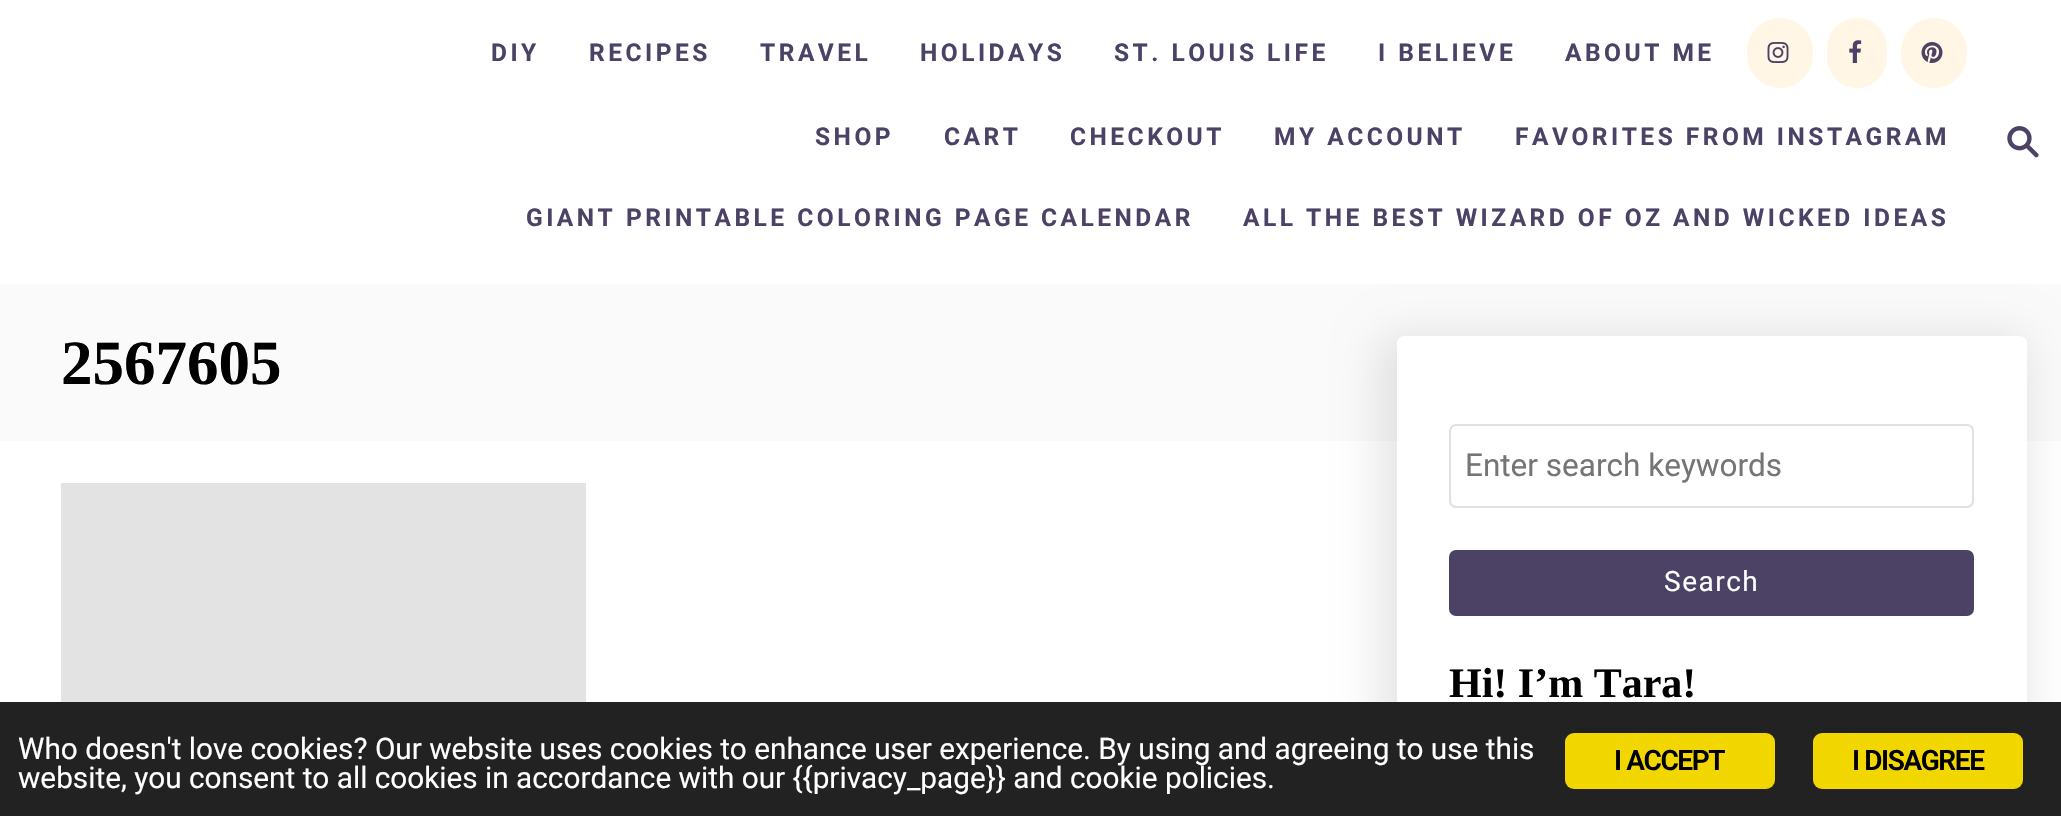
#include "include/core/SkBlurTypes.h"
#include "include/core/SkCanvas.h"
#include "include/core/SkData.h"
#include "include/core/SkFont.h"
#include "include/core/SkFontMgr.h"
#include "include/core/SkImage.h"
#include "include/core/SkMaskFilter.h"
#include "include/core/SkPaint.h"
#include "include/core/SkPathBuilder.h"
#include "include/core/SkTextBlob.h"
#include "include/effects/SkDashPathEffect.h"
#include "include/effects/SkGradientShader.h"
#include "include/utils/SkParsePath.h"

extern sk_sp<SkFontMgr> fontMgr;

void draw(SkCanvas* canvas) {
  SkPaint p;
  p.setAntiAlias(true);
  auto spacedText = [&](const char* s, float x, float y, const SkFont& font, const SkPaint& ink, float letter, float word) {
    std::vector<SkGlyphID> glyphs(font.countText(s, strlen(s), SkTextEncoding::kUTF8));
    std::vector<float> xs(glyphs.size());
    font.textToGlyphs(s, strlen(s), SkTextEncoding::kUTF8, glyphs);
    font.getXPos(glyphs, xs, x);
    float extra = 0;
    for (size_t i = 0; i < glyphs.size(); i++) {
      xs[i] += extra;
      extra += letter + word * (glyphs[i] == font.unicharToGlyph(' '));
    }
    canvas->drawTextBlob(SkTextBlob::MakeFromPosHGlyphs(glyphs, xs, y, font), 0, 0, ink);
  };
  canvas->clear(SK_ColorWHITE);
  p.setColor(SkColorSetRGB(255, 246, 229));
  canvas->drawRoundRect(SkRect::MakeLTRB(1747, 18, 1813, 88), 33, 33, p);
  canvas->drawImageRect(SkImages::DeferredFromEncodedData(SkData::MakeFromFileName("images/1.png")), SkRect::MakeLTRB(1767, 42, 1789, 63), SkSamplingOptions());
  canvas->drawRoundRect(SkRect::MakeLTRB(1827, 18, 1887, 88), 30, 30, p);
  canvas->drawImageRect(SkImages::DeferredFromEncodedData(SkData::MakeFromFileName("images/2.png")), SkRect::MakeLTRB(1849, 40, 1862, 63), SkSamplingOptions());
  canvas->drawRoundRect(SkRect::MakeLTRB(1901, 18, 1967, 88), 33, 33, p);
  canvas->drawImageRect(SkImages::DeferredFromEncodedData(SkData::MakeFromFileName("images/3.png")), SkRect::MakeLTRB(1921, 42, 1943, 63), SkSamplingOptions());
  canvas->drawImageRect(SkImages::DeferredFromEncodedData(SkData::MakeFromFileName("images/4.png")), SkRect::MakeLTRB(2007, 126, 2039, 158), SkSamplingOptions());
  p.setColor(SkColorSetRGB(250, 250, 250));
  canvas->drawRect(SkRect::MakeLTRB(0, 284, 2061, 441), p);
  p.setColor(SkColorSetRGB(227, 227, 227));
  canvas->drawRect(SkRect::MakeLTRB(61, 483, 586, 702), p);
  p.setColor(SkColorSetARGB(26, 0, 0, 0));
  p.setMaskFilter(SkMaskFilter::MakeBlur(kNormal_SkBlurStyle, 22));
  canvas->drawRoundRect(SkRect::MakeLTRB(1379, 336, 2027, 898), 16, 16, p);
  p.setMaskFilter(nullptr);
  p.setColor(SK_ColorWHITE);
  canvas->drawRoundRect(SkRect::MakeLTRB(1397, 336, 2027, 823), 7, 7, p);
  p.setStyle(SkPaint::kStroke_Style);
  p.setStrokeWidth(2);
  p.setColor(SkColorSetRGB(225, 225, 225));
  canvas->drawRoundRect(SkRect::MakeLTRB(1450, 425, 1973, 507), 6, 6, p);
  p.setStyle(SkPaint::kFill_Style);
  p.setColor(SkColorSetRGB(75, 66, 102));
  canvas->drawRoundRect(SkRect::MakeLTRB(1449, 550, 1974, 616), 7, 7, p);
  p.setColor(SkColorSetRGB(34, 34, 34));
  canvas->drawRect(SkRect::MakeLTRB(0, 702, 2061, 816), p);
  p.setColor(SkColorSetRGB(241, 214, 0));
  canvas->drawRoundRect(SkRect::MakeLTRB(1565, 733, 1775, 789), 9, 9, p);
  canvas->drawRoundRect(SkRect::MakeLTRB(1813, 733, 2023, 789), 9, 9, p);
  SkFont font1(fontMgr->matchFamilyStyle("Roboto", SkFontStyle::Bold()), 24.5f);
  font1.setSubpixel(true);
  p.setColor(SkColorSetRGB(75, 66, 102));
  spacedText("DIY", 491, 61, font1, p, 3.5f, 0);
  spacedText("RECIPES", 589, 61, font1, p, 3.5f, 0);
  spacedText("TRAVEL", 760, 61, font1, p, 3.5f, 0);
  spacedText("HOLIDAYS", 920, 61, font1, p, 3.5f, 0);
  spacedText("ST. LOUIS LIFE", 1114, 61, font1, p, 3.5f, 0);
  spacedText("I BELIEVE", 1378, 61, font1, p, 3.5f, 0);
  spacedText("ABOUT ME", 1565, 61, font1, p, 3.5f, 0);
  spacedText("SHOP", 815, 145, font1, p, 3.5f, 0);
  spacedText("CART", 944, 145, font1, p, 3.5f, 0);
  spacedText("CHECKOUT", 1070, 145, font1, p, 3.5f, 0);
  spacedText("MY ACCOUNT", 1274, 145, font1, p, 3.5f, 0);
  spacedText("FAVORITES FROM INSTAGRAM", 1515, 145, font1, p, 3.5f, 0);
  spacedText("GIANT PRINTABLE COLORING PAGE CALENDAR", 526, 226, font1, p, 3.5f, 0);
  spacedText("ALL THE BEST WIZARD OF OZ AND WICKED IDEAS", 1243, 226, font1, p, 3.5f, 0);
  SkFont font2(fontMgr->matchFamilyStyle("Liberation Serif", SkFontStyle::Bold()), 63);
  font2.setSubpixel(true);
  p.setColor(SK_ColorBLACK);
  canvas->drawString("2567605", 61, 384, font2, p);
  SkFont font3(fontMgr->matchFamilyStyle("Roboto", SkFontStyle::Normal()), 31.5f);
  font3.setSubpixel(true);
  p.setColor(SkColorSetRGB(117, 117, 117));
  canvas->drawString("Enter search keywords", 1465, 476, font3, p);
  SkFont font4(fontMgr->matchFamilyStyle("Roboto", SkFontStyle::Normal()), 28);
  font4.setSubpixel(true);
  p.setColor(SK_ColorWHITE);
  spacedText("Search", 1664, 591, font4, p, 1.5f, 0);
  SkFont font5(fontMgr->matchFamilyStyle("Liberation Serif", SkFontStyle::Bold()), 42);
  font5.setSubpixel(true);
  p.setColor(SK_ColorBLACK);
  canvas->drawString("Hi! I’m Tara!", 1449, 697, font5, p);
  SkFont font6(fontMgr->matchFamilyStyle("Roboto", SkFontStyle::Normal()), 29.75f);
  font6.setSubpixel(true);
  p.setColor(SK_ColorWHITE);
  canvas->drawString("Who doesn't love cookies? Our website uses cookies to enhance user experience. By using and agreeing to use this", 18, 759, font6, p);
  canvas->drawString("website, you consent to all cookies in accordance with our {{privacy_page}} and cookie policies.", 18, 788, font6, p);
  SkFont font7(fontMgr->matchFamilyStyle("Roboto", SkFontStyle(600, SkFontStyle::kNormal_Width, SkFontStyle::kUpright_Slant)), 28);
  font7.setSubpixel(true);
  p.setColor(SK_ColorBLACK);
  spacedText("I ACCEPT", 1614, 770, font7, p, -1.4f, 0);
  spacedText("I DISAGREE", 1852, 770, font7, p, -1.4f, 0);
}
